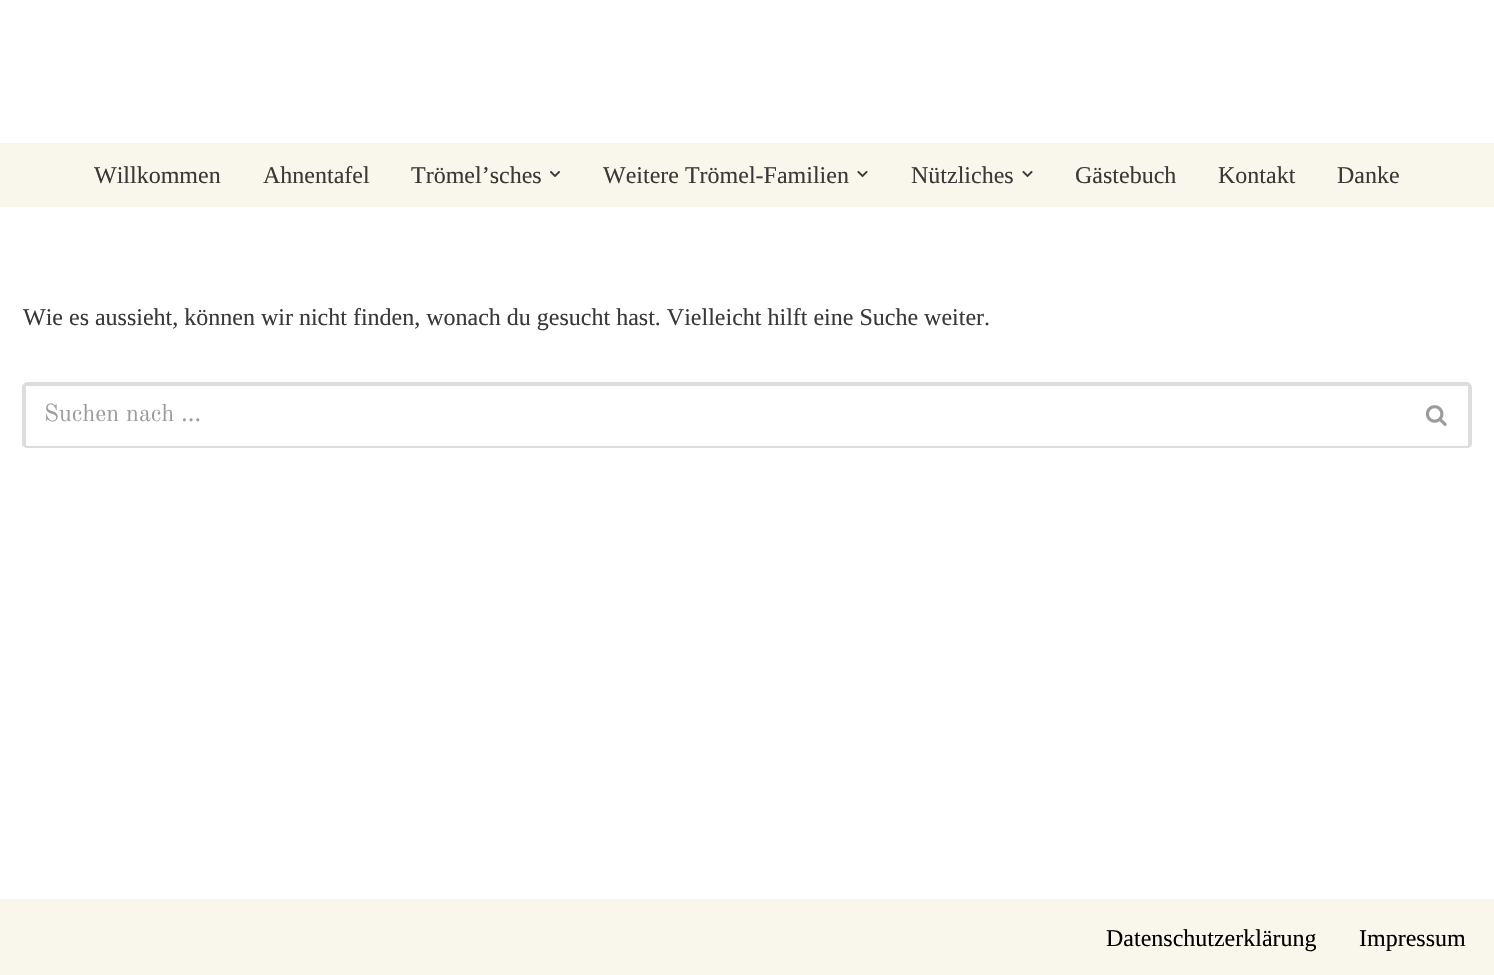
#include "include/core/SkBlurTypes.h"
#include "include/core/SkCanvas.h"
#include "include/core/SkData.h"
#include "include/core/SkFont.h"
#include "include/core/SkFontMgr.h"
#include "include/core/SkImage.h"
#include "include/core/SkMaskFilter.h"
#include "include/core/SkPaint.h"
#include "include/core/SkPathBuilder.h"
#include "include/core/SkTextBlob.h"
#include "include/effects/SkDashPathEffect.h"
#include "include/effects/SkGradientShader.h"
#include "include/utils/SkParsePath.h"

extern sk_sp<SkFontMgr> fontMgr;

void draw(SkCanvas* canvas) {
  SkPaint p;
  p.setAntiAlias(true);
  canvas->clear(SK_ColorWHITE);
  p.setColor(SkColorSetRGB(249, 246, 236));
  canvas->drawRect(SkRect::MakeLTRB(0, 143, 1494, 207), p);
  canvas->drawImageRect(SkImages::DeferredFromEncodedData(SkData::MakeFromFileName("images/1.png")), SkRect::MakeLTRB(550, 171, 560, 177), SkSamplingOptions());
  canvas->drawImageRect(SkImages::DeferredFromEncodedData(SkData::MakeFromFileName("images/2.png")), SkRect::MakeLTRB(857, 170, 868, 178), SkSamplingOptions());
  canvas->drawImageRect(SkImages::DeferredFromEncodedData(SkData::MakeFromFileName("images/2.png")), SkRect::MakeLTRB(1022, 170, 1033, 178), SkSamplingOptions());
  p.setColor(SkColorSetRGB(221, 221, 221));
  canvas->drawPath(SkPathBuilder(SkPathFillType::kEvenOdd).moveTo(27, 382).lineTo(1404, 382).lineTo(1404, 448).lineTo(27, 448).cubicTo(25, 448, 22, 446, 22, 444).lineTo(22, 387).cubicTo(22, 385, 25, 382, 27, 382).close().moveTo(27, 386).lineTo(1404, 386).lineTo(1404, 446).lineTo(27, 446).cubicTo(26, 446, 26, 445, 26, 444).lineTo(26, 387).cubicTo(26, 386, 26, 386, 27, 386).close().detach(), p);
  canvas->drawPath(SkPathBuilder(SkPathFillType::kEvenOdd).moveTo(1404, 382).lineTo(1467, 382).cubicTo(1469, 382, 1472, 385, 1472, 387).lineTo(1472, 444).cubicTo(1472, 446, 1469, 448, 1467, 448).lineTo(1404, 448).close().moveTo(1404, 386).lineTo(1467, 386).cubicTo(1468, 386, 1468, 386, 1468, 387).lineTo(1468, 444).cubicTo(1468, 445, 1468, 446, 1467, 446).lineTo(1404, 446).close().detach(), p);
  canvas->drawImageRect(SkImages::DeferredFromEncodedData(SkData::MakeFromFileName("images/3.png")), SkRect::MakeLTRB(1425, 405, 1447, 426), SkSamplingOptions());
  p.setColor(SkColorSetRGB(249, 246, 236));
  canvas->drawRect(SkRect::MakeLTRB(0, 899, 1494, 975), p);
  SkFont font1(fontMgr->matchFamilyStyle("Liberation Serif", SkFontStyle::Normal()), 24);
  font1.setSubpixel(true);
  p.setColor(SkColorSetRGB(57, 57, 57));
  canvas->drawString("Willkommen", 94, 183, font1, p);
  canvas->drawString("Ahnentafel", 263, 183, font1, p);
  canvas->drawString("Trömel’sches", 411, 183, font1, p);
  canvas->drawString("Weitere Trömel-Familien", 603, 183, font1, p);
  canvas->drawString("Nützliches", 911, 183, font1, p);
  canvas->drawString("Gästebuch", 1075, 183, font1, p);
  canvas->drawString("Kontakt", 1218, 183, font1, p);
  canvas->drawString("Danke", 1337, 183, font1, p);
  canvas->drawString("Wie es aussieht, können wir nicht finden, wonach du gesucht hast. Vielleicht hilft eine Suche weiter.", 23, 325, font1, p);
  SkFont font2(fontMgr->matchFamilyStyle("Old Standard TT", SkFontStyle::Normal()), 24);
  font2.setSubpixel(true);
  p.setColor(SkColorSetRGB(156, 156, 156));
  canvas->drawString("Suchen nach …", 44, 421, font2, p);
  p.setColor(SK_ColorBLACK);
  canvas->drawString("Datenschutzerklärung", 1106, 946, font1, p);
  canvas->drawString("Impressum", 1359, 946, font1, p);
}
